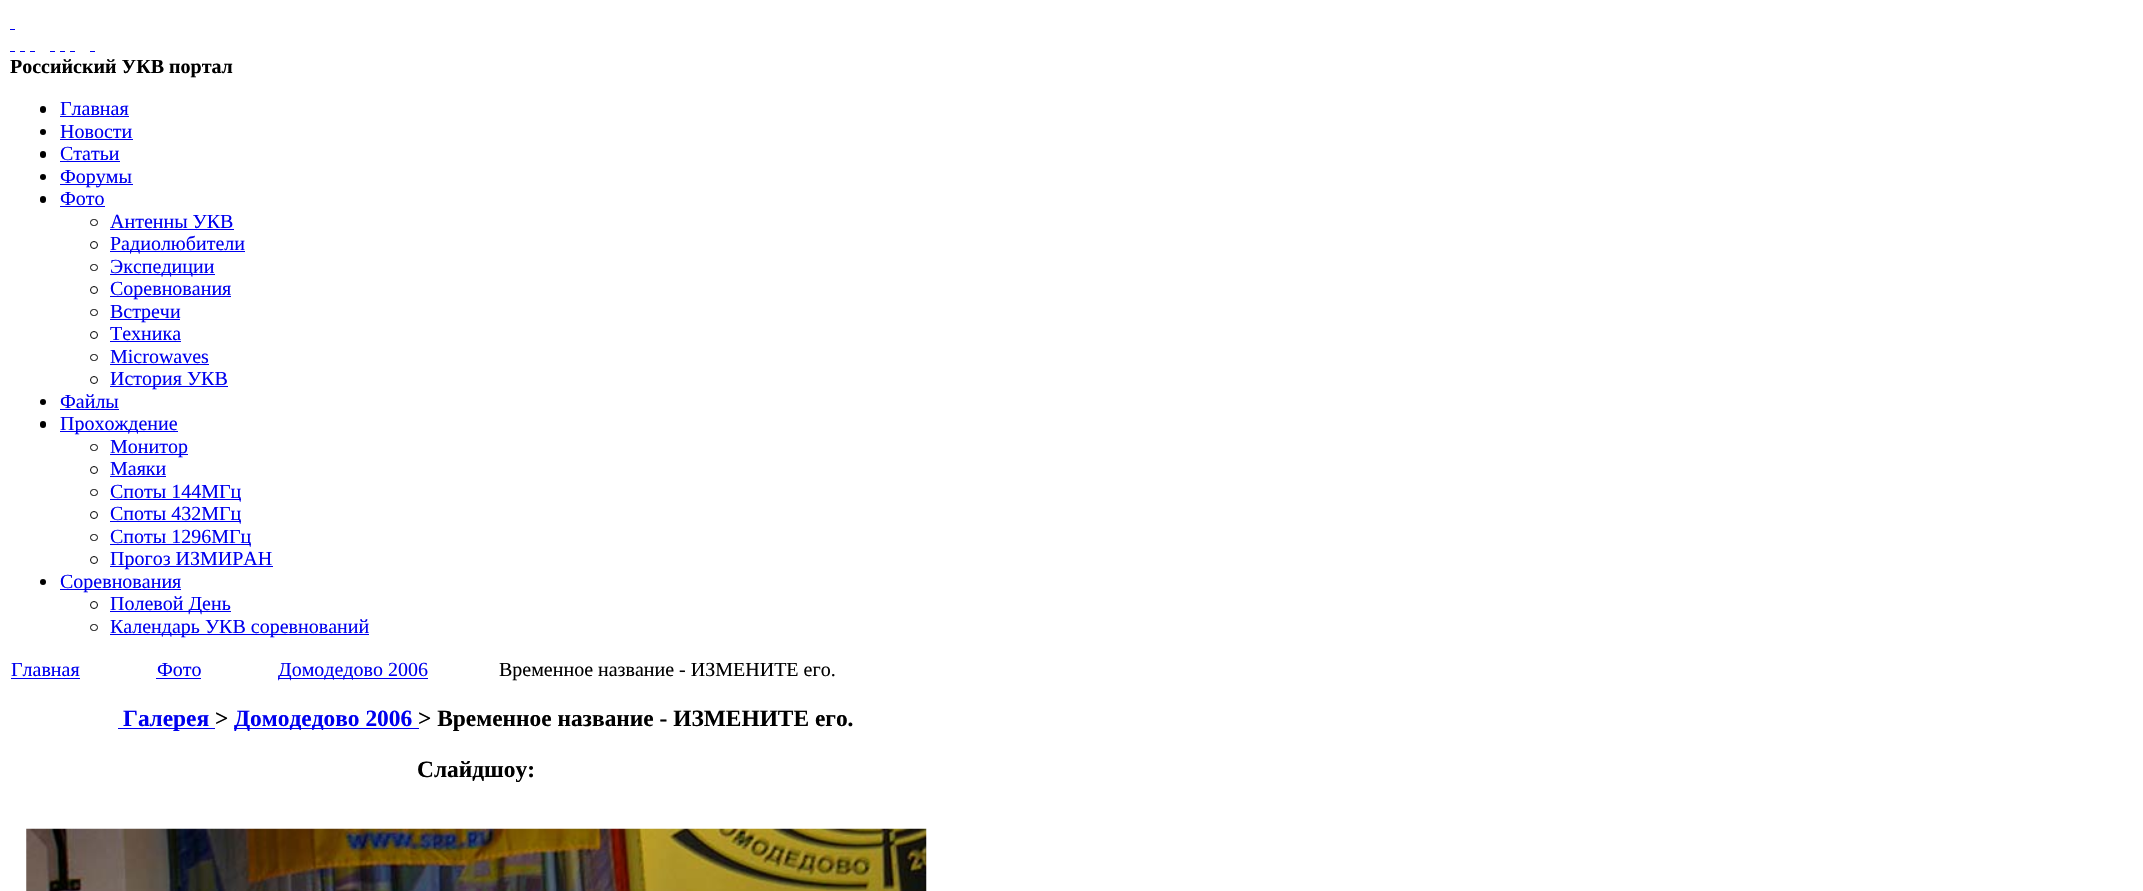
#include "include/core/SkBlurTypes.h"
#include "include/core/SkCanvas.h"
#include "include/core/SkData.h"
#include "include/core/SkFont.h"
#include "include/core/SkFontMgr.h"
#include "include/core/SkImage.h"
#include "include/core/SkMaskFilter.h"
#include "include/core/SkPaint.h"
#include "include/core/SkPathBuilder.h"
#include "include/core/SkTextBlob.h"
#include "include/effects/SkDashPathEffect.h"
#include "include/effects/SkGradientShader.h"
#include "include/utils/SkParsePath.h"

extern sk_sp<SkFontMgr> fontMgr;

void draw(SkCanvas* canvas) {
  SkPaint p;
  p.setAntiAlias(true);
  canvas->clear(SK_ColorWHITE);
  p.setColor(SkColorSetRGB(0, 0, 238));
  canvas->drawRect(SkRect::MakeLTRB(10, 29, 15, 30), p);
  canvas->drawRect(SkRect::MakeLTRB(10, 51, 15, 52), p);
  canvas->drawRect(SkRect::MakeLTRB(20, 51, 25, 52), p);
  canvas->drawRect(SkRect::MakeLTRB(30, 51, 35, 52), p);
  canvas->drawRect(SkRect::MakeLTRB(50, 51, 55, 52), p);
  canvas->drawRect(SkRect::MakeLTRB(60, 51, 65, 52), p);
  canvas->drawRect(SkRect::MakeLTRB(70, 51, 75, 52), p);
  canvas->drawRect(SkRect::MakeLTRB(90, 51, 95, 52), p);
  p.setColor(SK_ColorBLACK);
  canvas->drawRoundRect(SkRect::MakeLTRB(40, 106, 46, 113), 3, 3, p);
  p.setColor(SkColorSetRGB(0, 0, 238));
  canvas->drawRect(SkRect::MakeLTRB(60, 116, 129, 117), p);
  p.setColor(SK_ColorBLACK);
  canvas->drawCircle(43, 132, 3, p);
  p.setColor(SkColorSetRGB(0, 0, 238));
  canvas->drawRect(SkRect::MakeLTRB(60, 139, 133, 140), p);
  p.setColor(SK_ColorBLACK);
  canvas->drawRoundRect(SkRect::MakeLTRB(40, 151, 46, 158), 3, 3, p);
  p.setColor(SkColorSetRGB(0, 0, 238));
  canvas->drawRect(SkRect::MakeLTRB(60, 161, 120, 162), p);
  p.setColor(SK_ColorBLACK);
  canvas->drawCircle(43, 177, 3, p);
  p.setColor(SkColorSetRGB(0, 0, 238));
  canvas->drawRect(SkRect::MakeLTRB(60, 184, 133, 185), p);
  p.setColor(SK_ColorBLACK);
  canvas->drawRoundRect(SkRect::MakeLTRB(40, 196, 46, 203), 3, 3, p);
  p.setColor(SkColorSetRGB(0, 0, 238));
  canvas->drawRect(SkRect::MakeLTRB(60, 206, 105, 207), p);
  p.setStyle(SkPaint::kStroke_Style);
  p.setStrokeWidth(1);
  p.setColor(SK_ColorBLACK);
  canvas->drawRoundRect(SkRect::MakeLTRB(90.5f, 219.5f, 97.5f, 225.5f), 3, 3, p);
  p.setStyle(SkPaint::kFill_Style);
  p.setColor(SkColorSetRGB(0, 0, 238));
  canvas->drawRect(SkRect::MakeLTRB(110, 229, 234, 230), p);
  p.setStyle(SkPaint::kStroke_Style);
  p.setColor(SK_ColorBLACK);
  canvas->drawCircle(94, 245, 3.5f, p);
  p.setStyle(SkPaint::kFill_Style);
  p.setColor(SkColorSetRGB(0, 0, 238));
  canvas->drawRect(SkRect::MakeLTRB(110, 251, 245, 252), p);
  p.setStyle(SkPaint::kStroke_Style);
  p.setColor(SK_ColorBLACK);
  canvas->drawRoundRect(SkRect::MakeLTRB(90.5f, 264.5f, 97.5f, 270.5f), 3, 3, p);
  p.setStyle(SkPaint::kFill_Style);
  p.setColor(SkColorSetRGB(0, 0, 238));
  canvas->drawRect(SkRect::MakeLTRB(110, 274, 215, 275), p);
  p.setStyle(SkPaint::kStroke_Style);
  p.setColor(SK_ColorBLACK);
  canvas->drawCircle(94, 290, 3.5f, p);
  p.setStyle(SkPaint::kFill_Style);
  p.setColor(SkColorSetRGB(0, 0, 238));
  canvas->drawRect(SkRect::MakeLTRB(110, 296, 231, 297), p);
  p.setStyle(SkPaint::kStroke_Style);
  p.setColor(SK_ColorBLACK);
  canvas->drawRoundRect(SkRect::MakeLTRB(90.5f, 309.5f, 97.5f, 315.5f), 3, 3, p);
  p.setStyle(SkPaint::kFill_Style);
  p.setColor(SkColorSetRGB(0, 0, 238));
  canvas->drawRect(SkRect::MakeLTRB(110, 319, 180, 320), p);
  p.setStyle(SkPaint::kStroke_Style);
  p.setColor(SK_ColorBLACK);
  canvas->drawCircle(94, 335, 3.5f, p);
  p.setStyle(SkPaint::kFill_Style);
  p.setColor(SkColorSetRGB(0, 0, 238));
  canvas->drawRect(SkRect::MakeLTRB(110, 341, 181, 342), p);
  p.setStyle(SkPaint::kStroke_Style);
  p.setColor(SK_ColorBLACK);
  canvas->drawRoundRect(SkRect::MakeLTRB(90.5f, 354.5f, 97.5f, 360.5f), 3, 3, p);
  p.setStyle(SkPaint::kFill_Style);
  p.setColor(SkColorSetRGB(0, 0, 238));
  canvas->drawRect(SkRect::MakeLTRB(110, 364, 209, 365), p);
  p.setStyle(SkPaint::kStroke_Style);
  p.setColor(SK_ColorBLACK);
  canvas->drawCircle(94, 380, 3.5f, p);
  p.setStyle(SkPaint::kFill_Style);
  p.setColor(SkColorSetRGB(0, 0, 238));
  canvas->drawRect(SkRect::MakeLTRB(110, 386, 228, 387), p);
  p.setColor(SK_ColorBLACK);
  canvas->drawCircle(43, 402, 3, p);
  p.setColor(SkColorSetRGB(0, 0, 238));
  canvas->drawRect(SkRect::MakeLTRB(60, 409, 119, 410), p);
  p.setColor(SK_ColorBLACK);
  canvas->drawRoundRect(SkRect::MakeLTRB(40, 421, 46, 428), 3, 3, p);
  p.setColor(SkColorSetRGB(0, 0, 238));
  canvas->drawRect(SkRect::MakeLTRB(60, 431, 178, 432), p);
  p.setStyle(SkPaint::kStroke_Style);
  p.setColor(SK_ColorBLACK);
  canvas->drawRoundRect(SkRect::MakeLTRB(90.5f, 444.5f, 97.5f, 450.5f), 3, 3, p);
  p.setStyle(SkPaint::kFill_Style);
  p.setColor(SkColorSetRGB(0, 0, 238));
  canvas->drawRect(SkRect::MakeLTRB(110, 454, 188, 455), p);
  p.setStyle(SkPaint::kStroke_Style);
  p.setColor(SK_ColorBLACK);
  canvas->drawCircle(94, 470, 3.5f, p);
  p.setStyle(SkPaint::kFill_Style);
  p.setColor(SkColorSetRGB(0, 0, 238));
  canvas->drawRect(SkRect::MakeLTRB(110, 476, 166, 477), p);
  p.setStyle(SkPaint::kStroke_Style);
  p.setColor(SK_ColorBLACK);
  canvas->drawRoundRect(SkRect::MakeLTRB(90.5f, 489.5f, 97.5f, 495.5f), 3, 3, p);
  p.setStyle(SkPaint::kFill_Style);
  p.setColor(SkColorSetRGB(0, 0, 238));
  canvas->drawRect(SkRect::MakeLTRB(110, 499, 241, 500), p);
  p.setStyle(SkPaint::kStroke_Style);
  p.setColor(SK_ColorBLACK);
  canvas->drawCircle(94, 515, 3.5f, p);
  p.setStyle(SkPaint::kFill_Style);
  p.setColor(SkColorSetRGB(0, 0, 238));
  canvas->drawRect(SkRect::MakeLTRB(110, 521, 241, 522), p);
  p.setStyle(SkPaint::kStroke_Style);
  p.setColor(SK_ColorBLACK);
  canvas->drawRoundRect(SkRect::MakeLTRB(90.5f, 534.5f, 97.5f, 540.5f), 3, 3, p);
  p.setStyle(SkPaint::kFill_Style);
  p.setColor(SkColorSetRGB(0, 0, 238));
  canvas->drawRect(SkRect::MakeLTRB(110, 544, 251, 545), p);
  p.setStyle(SkPaint::kStroke_Style);
  p.setColor(SK_ColorBLACK);
  canvas->drawCircle(94, 560, 3.5f, p);
  p.setStyle(SkPaint::kFill_Style);
  p.setColor(SkColorSetRGB(0, 0, 238));
  canvas->drawRect(SkRect::MakeLTRB(110, 566, 273, 567), p);
  p.setColor(SK_ColorBLACK);
  canvas->drawCircle(43, 582, 3, p);
  p.setColor(SkColorSetRGB(0, 0, 238));
  canvas->drawRect(SkRect::MakeLTRB(60, 589, 181, 590), p);
  p.setStyle(SkPaint::kStroke_Style);
  p.setColor(SK_ColorBLACK);
  canvas->drawCircle(94, 605, 3.5f, p);
  p.setStyle(SkPaint::kFill_Style);
  p.setColor(SkColorSetRGB(0, 0, 238));
  canvas->drawRect(SkRect::MakeLTRB(110, 611, 231, 612), p);
  p.setStyle(SkPaint::kStroke_Style);
  p.setColor(SK_ColorBLACK);
  canvas->drawRoundRect(SkRect::MakeLTRB(90.5f, 624.5f, 97.5f, 630.5f), 3, 3, p);
  p.setStyle(SkPaint::kFill_Style);
  p.setColor(SkColorSetRGB(0, 0, 238));
  canvas->drawRect(SkRect::MakeLTRB(110, 634, 369, 635), p);
  canvas->drawRect(SkRect::MakeLTRB(11, 678, 80, 679), p);
  canvas->drawRect(SkRect::MakeLTRB(156, 678, 201, 679), p);
  canvas->drawRect(SkRect::MakeLTRB(278, 678, 428, 679), p);
  canvas->drawRect(SkRect::MakeLTRB(118, 728, 215, 729), p);
  canvas->drawRect(SkRect::MakeLTRB(234, 728, 419, 729), p);
  canvas->drawImageRect(SkImages::DeferredFromEncodedData(SkData::MakeFromFileName("images/1.png")), SkRect::MakeLTRB(26, 828, 927, 891), SkSamplingOptions());
  SkFont font1(fontMgr->matchFamilyStyle("Liberation Serif", SkFontStyle::Bold()), 20);
  font1.setSubpixel(true);
  p.setColor(SK_ColorBLACK);
  canvas->drawString("Российский УКВ портал", 10, 73, font1, p);
  SkFont font2(fontMgr->matchFamilyStyle("Liberation Serif", SkFontStyle::Normal()), 20);
  font2.setSubpixel(true);
  p.setColor(SkColorSetRGB(0, 0, 238));
  canvas->drawString("Главная", 60, 115, font2, p);
  canvas->drawString("Новости", 60, 138, font2, p);
  canvas->drawString("Статьи", 60, 160, font2, p);
  canvas->drawString("Форумы", 60, 183, font2, p);
  canvas->drawString("Фото", 60, 205, font2, p);
  canvas->drawString("Антенны УКВ", 110, 228, font2, p);
  canvas->drawString("Радиолюбители", 110, 250, font2, p);
  canvas->drawString("Экспедиции", 110, 273, font2, p);
  canvas->drawString("Соревнования", 110, 295, font2, p);
  canvas->drawString("Встречи", 110, 318, font2, p);
  canvas->drawString("Техника", 110, 340, font2, p);
  canvas->drawString("Microwaves", 110, 363, font2, p);
  canvas->drawString("История УКВ", 110, 385, font2, p);
  canvas->drawString("Файлы", 60, 408, font2, p);
  canvas->drawString("Прохождение", 60, 430, font2, p);
  canvas->drawString("Монитор", 110, 453, font2, p);
  canvas->drawString("Маяки", 110, 475, font2, p);
  canvas->drawString("Споты 144МГц", 110, 498, font2, p);
  canvas->drawString("Споты 432МГц", 110, 520, font2, p);
  canvas->drawString("Споты 1296МГц", 110, 543, font2, p);
  canvas->drawString("Прогоз ИЗМИРАН", 110, 565, font2, p);
  canvas->drawString("Соревнования", 60, 588, font2, p);
  canvas->drawString("Полевой День", 110, 610, font2, p);
  canvas->drawString("Календарь УКВ соревнований", 110, 633, font2, p);
  canvas->drawString("Главная", 11, 676, font2, p);
  canvas->drawString("Фото", 157, 676, font2, p);
  canvas->drawString("Домодедово 2006", 278, 676, font2, p);
  p.setColor(SK_ColorBLACK);
  canvas->drawString("Временное название - ИЗМЕНИТЕ его.", 499, 676, font2, p);
  SkFont font3(fontMgr->matchFamilyStyle("Liberation Serif", SkFontStyle::Bold()), 23.4f);
  font3.setSubpixel(true);
  p.setColor(SkColorSetRGB(0, 0, 238));
  canvas->drawString("Галерея", 123, 726, font3, p);
  p.setColor(SK_ColorBLACK);
  canvas->drawString(">", 215, 726, font3, p);
  p.setColor(SkColorSetRGB(0, 0, 238));
  canvas->drawString("Домодедово 2006", 234, 726, font3, p);
  p.setColor(SK_ColorBLACK);
  canvas->drawString("> Временное название - ИЗМЕНИТЕ его.", 418, 726, font3, p);
  canvas->drawString("Слайдшоу:", 417, 777, font3, p);
}
